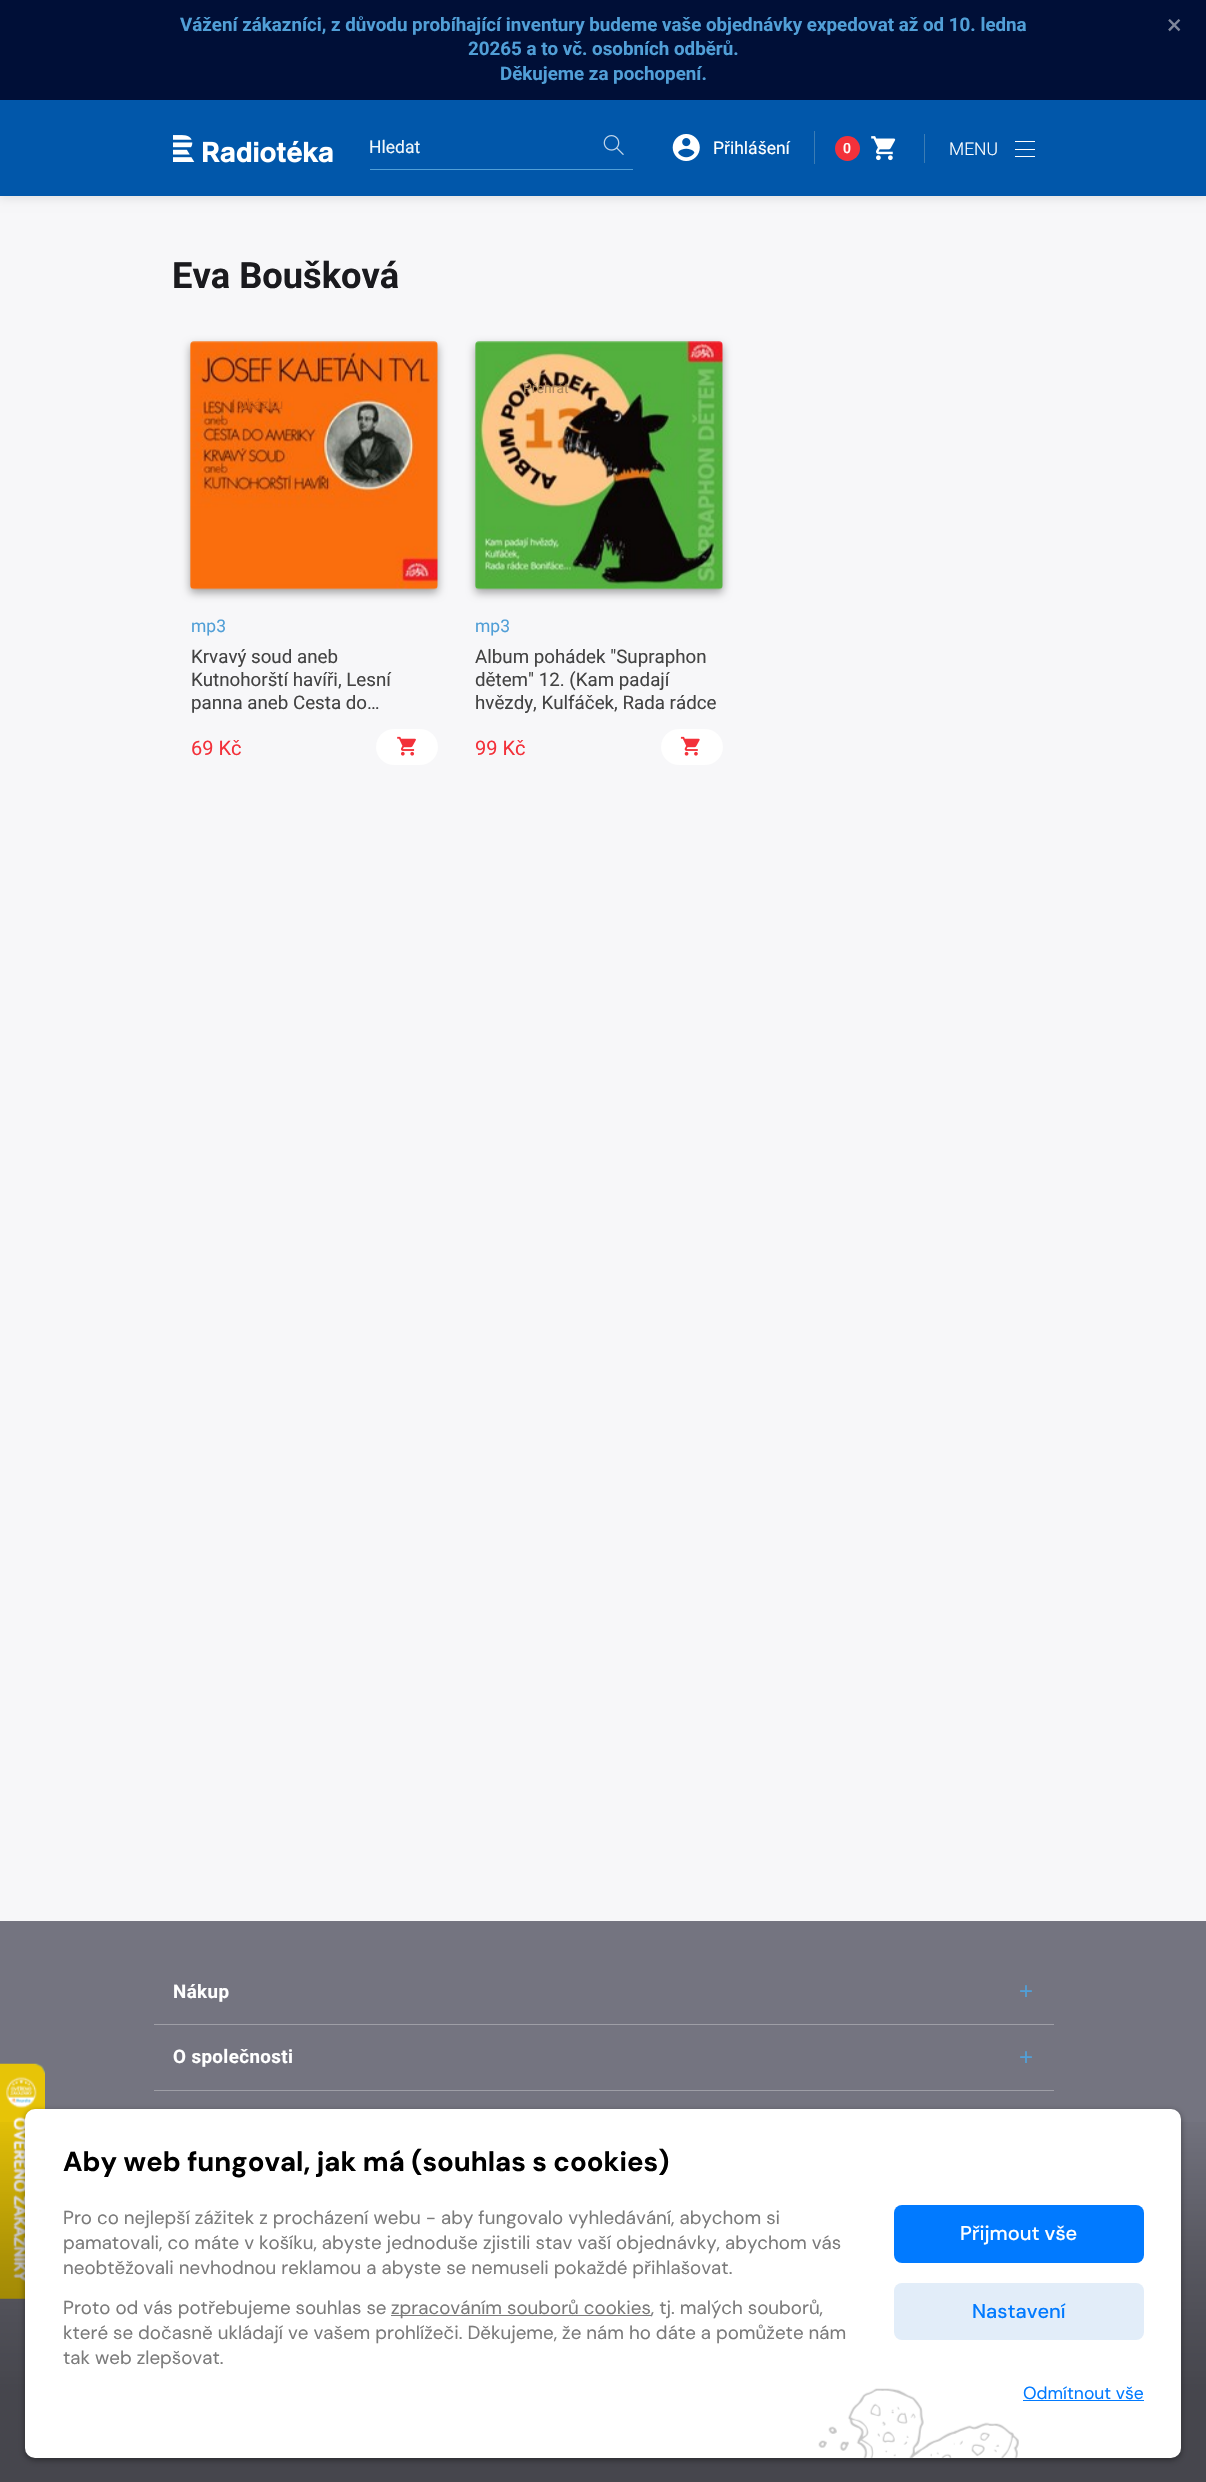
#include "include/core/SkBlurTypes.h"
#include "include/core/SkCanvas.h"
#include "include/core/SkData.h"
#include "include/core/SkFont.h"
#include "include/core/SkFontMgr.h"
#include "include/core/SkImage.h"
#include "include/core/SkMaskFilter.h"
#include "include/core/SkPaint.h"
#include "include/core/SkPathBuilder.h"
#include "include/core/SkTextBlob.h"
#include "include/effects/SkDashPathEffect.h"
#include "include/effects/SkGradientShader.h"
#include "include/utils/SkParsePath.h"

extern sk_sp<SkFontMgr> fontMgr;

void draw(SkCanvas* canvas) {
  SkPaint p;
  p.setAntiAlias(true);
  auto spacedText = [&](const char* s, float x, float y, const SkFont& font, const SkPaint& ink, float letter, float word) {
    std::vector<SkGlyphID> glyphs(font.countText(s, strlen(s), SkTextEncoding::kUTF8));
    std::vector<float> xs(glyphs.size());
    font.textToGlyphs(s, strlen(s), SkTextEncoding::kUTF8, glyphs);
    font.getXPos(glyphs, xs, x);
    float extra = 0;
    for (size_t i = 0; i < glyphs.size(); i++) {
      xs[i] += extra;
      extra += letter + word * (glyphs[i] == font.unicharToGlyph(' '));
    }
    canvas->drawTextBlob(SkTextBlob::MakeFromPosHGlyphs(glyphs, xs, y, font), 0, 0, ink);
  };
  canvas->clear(SkColorSetRGB(247, 247, 249));
  p.setColor(SkColorSetARGB(26, 0, 0, 0));
  p.setMaskFilter(SkMaskFilter::MakeBlur(kNormal_SkBlurStyle, 5));
  canvas->drawRect(SkRect::MakeLTRB(-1, 99, 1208, 198), p);
  p.setMaskFilter(nullptr);
  p.setColor(SkColorSetRGB(0, 15, 55));
  canvas->drawRect(SkRect::MakeLTRB(0, 0, 1206, 100), p);
  p.setColor(SkColorSetRGB(1, 87, 170));
  canvas->drawRect(SkRect::MakeLTRB(0, 100, 1206, 196), p);
  canvas->drawImageRect(SkImages::DeferredFromEncodedData(SkData::MakeFromFileName("images/1.png")), SkRect::MakeLTRB(173, 135, 333, 163), SkSamplingOptions());
  p.setColor(SkColorSetRGB(81, 159, 215));
  canvas->drawRect(SkRect::MakeLTRB(370, 169, 633, 170), p);
  canvas->drawImageRect(SkImages::DeferredFromEncodedData(SkData::MakeFromFileName("images/2.png")), SkRect::MakeLTRB(603, 135, 624, 155), SkSamplingOptions());
  p.setColor(SkColorSetRGB(59, 124, 180));
  canvas->drawRect(SkRect::MakeLTRB(814, 131, 815, 164), p);
  canvas->drawImageRect(SkImages::DeferredFromEncodedData(SkData::MakeFromFileName("images/3.png")), SkRect::MakeLTRB(672, 134, 700, 161), SkSamplingOptions());
  canvas->drawRect(SkRect::MakeLTRB(924, 134, 925, 163), p);
  p.setColor(SkColorSetRGB(243, 49, 58));
  canvas->drawCircle(847.5f, 148.5f, 12.5f, p);
  canvas->drawImageRect(SkImages::DeferredFromEncodedData(SkData::MakeFromFileName("images/4.png")), SkRect::MakeLTRB(871, 136, 896, 161), SkSamplingOptions());
  p.setColor(SK_ColorWHITE);
  canvas->drawRect(SkRect::MakeLTRB(1015, 141, 1035, 142), p);
  canvas->drawRect(SkRect::MakeLTRB(1015, 149, 1035, 150), p);
  canvas->drawRect(SkRect::MakeLTRB(1015, 156, 1035, 157), p);
  p.setColor(SkColorSetARGB(84, 0, 0, 0));
  p.setMaskFilter(SkMaskFilter::MakeBlur(kNormal_SkBlurStyle, 4.5f));
  canvas->drawRoundRect(SkRect::MakeLTRB(190, 345, 438, 593), 4, 4, p);
  p.setMaskFilter(nullptr);
  canvas->drawImageRect(SkImages::DeferredFromEncodedData(SkData::MakeFromFileName("images/5.png")), SkRect::MakeLTRB(190, 341, 438, 590), SkSamplingOptions());
  p.setColor(SK_ColorWHITE);
  canvas->drawRoundRect(SkRect::MakeLTRB(376, 729, 438, 765), 18, 18, p);
  canvas->drawImageRect(SkImages::DeferredFromEncodedData(SkData::MakeFromFileName("images/6.png")), SkRect::MakeLTRB(397, 736, 416, 756), SkSamplingOptions());
  p.setColor(SkColorSetARGB(84, 0, 0, 0));
  p.setMaskFilter(SkMaskFilter::MakeBlur(kNormal_SkBlurStyle, 4.5f));
  canvas->drawRoundRect(SkRect::MakeLTRB(475, 345, 723, 593), 4, 4, p);
  p.setMaskFilter(nullptr);
  canvas->drawImageRect(SkImages::DeferredFromEncodedData(SkData::MakeFromFileName("images/7.png")), SkRect::MakeLTRB(475, 341, 723, 590), SkSamplingOptions());
  p.setColor(SK_ColorWHITE);
  canvas->drawRoundRect(SkRect::MakeLTRB(661, 729, 723, 765), 18, 18, p);
  canvas->drawImageRect(SkImages::DeferredFromEncodedData(SkData::MakeFromFileName("images/8.png")), SkRect::MakeLTRB(680, 736, 700, 756), SkSamplingOptions());
  p.setColor(SkColorSetRGB(116, 116, 128));
  canvas->drawRect(SkRect::MakeLTRB(0, 1921, 1206, 2482), p);
  p.setColor(SkColorSetRGB(158, 158, 166));
  canvas->drawRect(SkRect::MakeLTRB(154, 2024, 1054, 2025), p);
  canvas->drawRect(SkRect::MakeLTRB(154, 2090, 1054, 2091), p);
  canvas->drawImageRect(SkImages::DeferredFromEncodedData(SkData::MakeFromFileName("images/9.png")), SkRect::MakeLTRB(0, 2063, 45, 2299), SkSamplingOptions());
  {
    const SkColor colors[] = {SkColorSetARGB(0, 0, 0, 0), SkColorSetARGB(64, 0, 0, 0), SkColorSetARGB(102, 0, 0, 0)};
    const float stops[] = {0, 0.4f, 0.75f};
    const SkPoint ends[] = {{603, 2109}, {603, 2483}};
    p.setShader(SkGradientShader::MakeLinear(ends, colors, stops, 3, SkTileMode::kClamp));
    p.setAlpha(255);
  }
  canvas->drawRect(SkRect::MakeLTRB(0, 2122, 1206, 2482), p);
  p.setShader(nullptr);
  p.setColor(SkColorSetARGB(102, 0, 0, 0));
  p.setMaskFilter(SkMaskFilter::MakeBlur(kNormal_SkBlurStyle, 3));
  canvas->drawRoundRect(SkRect::MakeLTRB(25, 2111, 1181, 2460), 10, 10, p);
  p.setMaskFilter(nullptr);
  p.setColor(SK_ColorWHITE);
  canvas->drawRoundRect(SkRect::MakeLTRB(25, 2109, 1181, 2458), 10, 10, p);
  p.setColor(SkColorSetRGB(123, 123, 123));
  canvas->drawRect(SkRect::MakeLTRB(391, 2315, 651, 2316), p);
  p.setColor(SkColorSetRGB(1, 122, 255));
  canvas->drawRoundRect(SkRect::MakeLTRB(894, 2205, 1144, 2263), 8, 8, p);
  p.setColor(SkColorSetRGB(226, 237, 249));
  canvas->drawRoundRect(SkRect::MakeLTRB(894, 2283, 1144, 2340), 8, 8, p);
  p.setColor(SkColorSetRGB(1, 122, 255));
  canvas->drawRect(SkRect::MakeLTRB(1023, 2400, 1144, 2401), p);
  canvas->drawImageRect(SkImages::DeferredFromEncodedData(SkData::MakeFromFileName("images/10.png")), SkRect::MakeLTRB(818, 2388, 1019, 2458), SkSamplingOptions());
  SkFont font1(fontMgr->matchFamilyStyle("Roboto", SkFontStyle::Bold()), 18.75f);
  font1.setSubpixel(true);
  p.setColor(SkColorSetRGB(81, 159, 215));
  canvas->drawString("Vážení zákazníci, z důvodu probíhající inventury budeme vaše objednávky expedovat až od 10. ledna", 180, 31, font1, p);
  SkFont font2(fontMgr->matchFamilyStyle("Roboto", SkFontStyle::Normal()), 27.5f);
  font2.setSubpixel(true);
  p.setColor(SkColorSetRGB(128, 135, 155));
  canvas->drawString("×", 1167, 34, font2, p);
  p.setColor(SkColorSetRGB(81, 159, 215));
  canvas->drawString("20265 a to vč. osobních odběrů.", 468, 55, font1, p);
  canvas->drawString("Děkujeme za pochopení.", 500, 80, font1, p);
  SkFont font3(fontMgr->matchFamilyStyle("Roboto", SkFontStyle::Normal()), 17.5f);
  font3.setSubpixel(true);
  p.setColor(SkColorSetRGB(242, 247, 251));
  canvas->drawString("Hledat", 369, 153, font3, p);
  p.setColor(SK_ColorWHITE);
  canvas->drawString("Přihlášení", 713, 154, font3, p);
  SkFont font4(fontMgr->matchFamilyStyle("Roboto", SkFontStyle(500, SkFontStyle::kNormal_Width, SkFontStyle::kUpright_Slant)), 14);
  font4.setSubpixel(true);
  canvas->drawString("0", 843, 153, font4, p);
  SkFont font5(fontMgr->matchFamilyStyle("Roboto", SkFontStyle(300, SkFontStyle::kNormal_Width, SkFontStyle::kUpright_Slant)), 17.5f);
  font5.setSubpixel(true);
  canvas->drawString("MENU", 949, 155, font5, p);
  SkFont font6(fontMgr->matchFamilyStyle("Roboto", SkFontStyle::Bold()), 36.25f);
  font6.setSubpixel(true);
  p.setColor(SkColorSetRGB(26, 26, 30));
  canvas->drawString("Eva Boušková", 172, 288, font6, p);
  SkFont font7(fontMgr->matchFamilyStyle("Roboto", SkFontStyle::Normal()), 14);
  font7.setSubpixel(true);
  p.setColor(SkColorSetRGB(212, 93, 17));
  canvas->drawString("ukázku", 239, 409, font7, p);
  p.setColor(SkColorSetRGB(81, 159, 215));
  canvas->drawString("mp3", 191, 632, font3, p);
  SkFont font8(fontMgr->matchFamilyStyle("Roboto", SkFontStyle::Normal()), 18.75f);
  font8.setSubpixel(true);
  p.setColor(SkColorSetRGB(67, 67, 67));
  canvas->drawString("Krvavý soud aneb", 191, 663, font8, p);
  canvas->drawString("Kutnohorští havíři, Lesní", 191, 686, font8, p);
  canvas->drawString("panna aneb Cesta do…", 191, 709, font8, p);
  SkFont font9(fontMgr->matchFamilyStyle("Roboto", SkFontStyle::Normal()), 20);
  font9.setSubpixel(true);
  p.setColor(SkColorSetRGB(243, 49, 58));
  canvas->drawString("69 Kč", 191, 755, font9, p);
  p.setColor(SkColorSetRGB(175, 137, 95));
  canvas->drawString("Přehrát", 523, 393, font7, p);
  p.setColor(SkColorSetRGB(81, 159, 215));
  canvas->drawString("mp3", 475, 632, font3, p);
  p.setColor(SkColorSetRGB(67, 67, 67));
  canvas->drawString("Album pohádek \"Supraphon", 475, 663, font8, p);
  canvas->drawString("dětem\" 12. (Kam padají", 475, 686, font8, p);
  canvas->drawString("hvězdy, Kulfáček, Rada rádce", 475, 709, font8, p);
  p.setColor(SkColorSetRGB(243, 49, 58));
  canvas->drawString("99 Kč", 475, 755, font9, p);
  p.setColor(SK_ColorWHITE);
  spacedText("Nákup", 173, 1998, font1, p, 0.4f, 0);
  SkFont font10(fontMgr->matchFamilyStyle("Liberation Sans", SkFontStyle::Normal()), 24);
  font10.setSubpixel(true);
  p.setColor(SkColorSetRGB(81, 159, 215));
  spacedText("+", 1019, 1999, font10, p, 0.4f, 0);
  p.setColor(SK_ColorWHITE);
  spacedText("O společnosti", 173, 2063, font1, p, 0.4f, 0);
  p.setColor(SkColorSetRGB(81, 159, 215));
  spacedText("+", 1019, 2065, font10, p, 0.4f, 0);
  SkFont font11(fontMgr->matchFamilyStyle("DM Sans", SkFontStyle::Bold()), 27.5f);
  font11.setSubpixel(true);
  p.setColor(SK_ColorBLACK);
  canvas->drawString("Aby web fungoval, jak má (souhlas s cookies)", 63, 2171, font11, p);
  SkFont font12(fontMgr->matchFamilyStyle("DM Sans", SkFontStyle::Normal()), 18.75f);
  font12.setSubpixel(true);
  p.setColor(SkColorSetRGB(123, 123, 123));
  canvas->drawString("Pro co nejlepší zážitek z procházení webu - aby fungovalo vyhledávání, abychom si", 63, 2224, font12, p);
  canvas->drawString("pamatovali, co máte v košíku, abyste jednoduše zjistili stav vaší objednávky, abychom vás", 63, 2249, font12, p);
  canvas->drawString("neobtěžovali nevhodnou reklamou a abyste se nemuseli pokaždé přihlašovat.", 63, 2274, font12, p);
  canvas->drawString("Proto od vás potřebujeme souhlas se", 63, 2314, font12, p);
  canvas->drawString("zpracováním souborů cookies, tj. malých souborů,", 391, 2314, font12, p);
  canvas->drawString("které se dočasně ukládají ve vašem prohlížeči. Děkujeme, že nám ho dáte a pomůžete nám", 63, 2339, font12, p);
  canvas->drawString("tak web zlepšovat.", 63, 2364, font12, p);
  SkFont font13(fontMgr->matchFamilyStyle("DM Sans", SkFontStyle(500, SkFontStyle::kNormal_Width, SkFontStyle::kUpright_Slant)), 20);
  font13.setSubpixel(true);
  p.setColor(SK_ColorWHITE);
  canvas->drawString("Přijmout vše", 960, 2240, font13, p);
  p.setColor(SkColorSetRGB(1, 122, 255));
  canvas->drawString("Nastavení", 972, 2318, font13, p);
  SkFont font14(fontMgr->matchFamilyStyle("DM Sans", SkFontStyle::Normal()), 17.5f);
  font14.setSubpixel(true);
  canvas->drawString("Odmítnout vše", 1023, 2399, font14, p);
}
